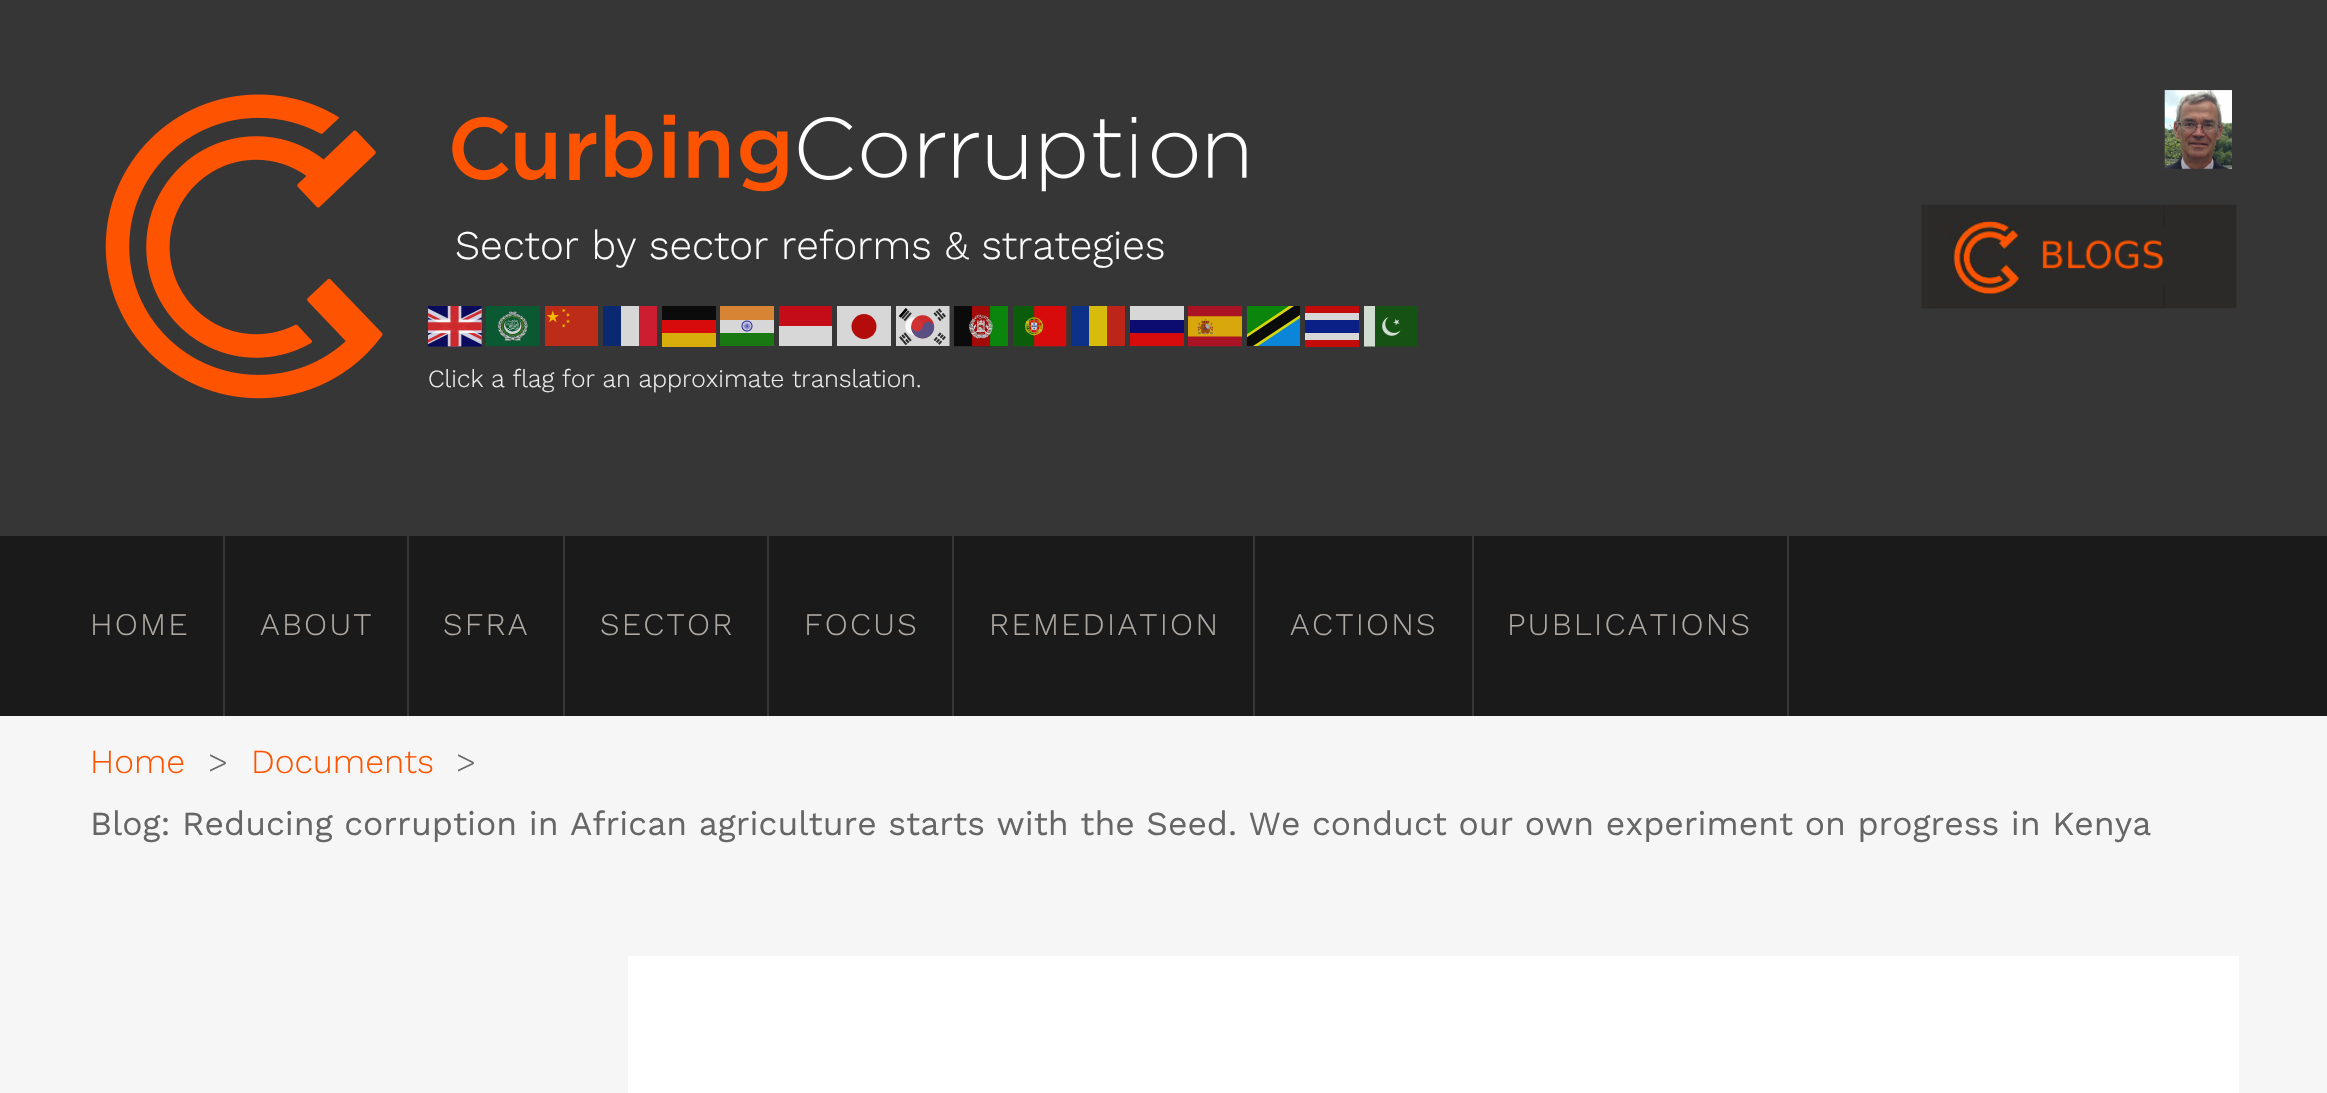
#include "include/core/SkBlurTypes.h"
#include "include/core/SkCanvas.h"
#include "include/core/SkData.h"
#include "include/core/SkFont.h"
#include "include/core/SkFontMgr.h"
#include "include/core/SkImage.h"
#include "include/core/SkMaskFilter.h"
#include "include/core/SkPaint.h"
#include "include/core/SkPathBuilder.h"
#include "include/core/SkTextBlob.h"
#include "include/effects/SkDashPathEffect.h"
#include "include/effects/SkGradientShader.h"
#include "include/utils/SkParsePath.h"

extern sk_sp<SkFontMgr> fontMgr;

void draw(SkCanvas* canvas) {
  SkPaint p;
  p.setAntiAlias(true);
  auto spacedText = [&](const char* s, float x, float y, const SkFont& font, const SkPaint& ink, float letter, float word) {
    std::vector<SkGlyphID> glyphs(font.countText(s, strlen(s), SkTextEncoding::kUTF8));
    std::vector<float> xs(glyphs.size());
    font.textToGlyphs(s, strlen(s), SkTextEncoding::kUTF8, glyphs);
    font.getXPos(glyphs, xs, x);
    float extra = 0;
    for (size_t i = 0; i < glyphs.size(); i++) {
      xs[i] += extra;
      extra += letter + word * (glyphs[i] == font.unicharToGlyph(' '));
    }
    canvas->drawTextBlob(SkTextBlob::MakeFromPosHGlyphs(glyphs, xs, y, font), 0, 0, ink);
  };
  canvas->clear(SkColorSetRGB(246, 246, 246));
  p.setColor(SkColorSetRGB(54, 54, 54));
  canvas->drawRect(SkRect::MakeLTRB(0, 0, 2327, 536), p);
  canvas->drawImageRect(SkImages::DeferredFromEncodedData(SkData::MakeFromFileName("images/1.png")), SkRect::MakeLTRB(105, 94, 383, 399), SkSamplingOptions());
  canvas->drawImageRect(SkImages::DeferredFromEncodedData(SkData::MakeFromFileName("images/2.png")), SkRect::MakeLTRB(452, 114, 1247, 192), SkSamplingOptions());
  canvas->drawImageRect(SkImages::DeferredFromEncodedData(SkData::MakeFromFileName("images/3.png")), SkRect::MakeLTRB(428, 306, 482, 347), SkSamplingOptions());
  canvas->drawImageRect(SkImages::DeferredFromEncodedData(SkData::MakeFromFileName("images/4.png")), SkRect::MakeLTRB(486, 306, 540, 347), SkSamplingOptions());
  canvas->drawImageRect(SkImages::DeferredFromEncodedData(SkData::MakeFromFileName("images/5.png")), SkRect::MakeLTRB(545, 306, 598, 346), SkSamplingOptions());
  p.setColor(SkColorSetRGB(11, 41, 112));
  canvas->drawRect(SkRect::MakeLTRB(603, 306, 621, 346), p);
  p.setColor(SkColorSetRGB(215, 215, 215));
  canvas->drawRect(SkRect::MakeLTRB(621, 306, 639, 346), p);
  p.setColor(SkColorSetRGB(205, 30, 49));
  canvas->drawRect(SkRect::MakeLTRB(639, 306, 657, 346), p);
  p.setColor(SkColorSetRGB(11, 11, 11));
  canvas->drawRect(SkRect::MakeLTRB(662, 306, 716, 320), p);
  canvas->drawImageRect(SkImages::DeferredFromEncodedData(SkData::MakeFromFileName("images/6.png")), SkRect::MakeLTRB(720, 306, 774, 346), SkSamplingOptions());
  p.setColor(SkColorSetRGB(196, 11, 24));
  canvas->drawRect(SkRect::MakeLTRB(779, 306, 832, 326), p);
  p.setColor(SkColorSetRGB(215, 215, 215));
  canvas->drawRect(SkRect::MakeLTRB(837, 306, 891, 346), p);
  canvas->drawImageRect(SkImages::DeferredFromEncodedData(SkData::MakeFromFileName("images/7.png")), SkRect::MakeLTRB(896, 306, 950, 346), SkSamplingOptions());
  canvas->drawImageRect(SkImages::DeferredFromEncodedData(SkData::MakeFromFileName("images/8.png")), SkRect::MakeLTRB(954, 306, 1008, 347), SkSamplingOptions());
  canvas->drawImageRect(SkImages::DeferredFromEncodedData(SkData::MakeFromFileName("images/9.png")), SkRect::MakeLTRB(1013, 306, 1067, 347), SkSamplingOptions());
  p.setColor(SkColorSetRGB(11, 50, 136));
  canvas->drawRect(SkRect::MakeLTRB(1071, 306, 1089, 346), p);
  p.setColor(SkColorSetRGB(215, 188, 11));
  canvas->drawRect(SkRect::MakeLTRB(1089, 306, 1107, 346), p);
  p.setColor(SkColorSetRGB(188, 37, 24));
  canvas->drawRect(SkRect::MakeLTRB(1107, 306, 1125, 346), p);
  p.setColor(SkColorSetRGB(215, 215, 215));
  canvas->drawRect(SkRect::MakeLTRB(1130, 306, 1184, 320), p);
  canvas->drawImageRect(SkImages::DeferredFromEncodedData(SkData::MakeFromFileName("images/10.png")), SkRect::MakeLTRB(1188, 306, 1242, 347), SkSamplingOptions());
  p.setColor(SkColorSetRGB(11, 133, 215));
  canvas->drawRect(SkRect::MakeLTRB(1258, 316, 1300, 346), p);
  canvas->save();
  canvas->clipRect(SkRect::MakeLTRB(1247, 306, 1301, 347));
  p.setColor(SkColorSetRGB(11, 133, 11));
  canvas->drawPath(SkPathBuilder().moveTo(1246, 306).lineTo(1300, 306).lineTo(1300, 308).lineTo(1246, 344).close().detach(), p);
  p.setColor(SkColorSetRGB(11, 11, 11));
  canvas->drawPath(SkPathBuilder().moveTo(1246, 336).lineTo(1246, 346).lineTo(1257, 346).lineTo(1300, 316).lineTo(1300, 306).lineTo(1290, 306).close().detach(), p);
  p.setColor(SkColorSetRGB(215, 215, 11));
  canvas->drawPath(SkPathBuilder(SkPathFillType::kEvenOdd).moveTo(1253, 346).lineTo(1300, 315).lineTo(1300, 318).lineTo(1258, 346).close().moveTo(1294, 306).lineTo(1289, 306).lineTo(1246, 335).lineTo(1246, 338).close().detach(), p);
  canvas->restore();
  p.setColor(SkColorSetRGB(215, 215, 215));
  canvas->drawRect(SkRect::MakeLTRB(1305, 313, 1359, 340), p);
  p.setColor(SkColorSetRGB(11, 32, 134));
  canvas->drawRect(SkRect::MakeLTRB(1305, 320, 1359, 333), p);
  p.setColor(SkColorSetRGB(196, 11, 11));
  canvas->drawPath(SkPathBuilder(SkPathFillType::kEvenOdd).moveTo(1305, 306).lineTo(1359, 306).lineTo(1359, 313).lineTo(1305, 313).close().moveTo(1305, 340).lineTo(1359, 340).lineTo(1359, 347).lineTo(1305, 347).close().detach(), p);
  canvas->drawImageRect(SkImages::DeferredFromEncodedData(SkData::MakeFromFileName("images/11.png")), SkRect::MakeLTRB(1364, 306, 1418, 347), SkSamplingOptions());
  p.setColor(SkColorSetRGB(215, 11, 11));
  canvas->drawRect(SkRect::MakeLTRB(662, 320, 716, 333), p);
  p.setColor(SkColorSetRGB(180, 11, 11));
  canvas->drawCircle(864, 326.5f, 12.5f, p);
  p.setColor(SkColorSetRGB(12, 12, 112));
  canvas->drawRect(SkRect::MakeLTRB(1130, 320, 1184, 333), p);
  p.setColor(SkColorSetRGB(215, 174, 11));
  canvas->drawRect(SkRect::MakeLTRB(662, 333, 716, 347), p);
  p.setColor(SkColorSetRGB(215, 215, 215));
  canvas->drawRect(SkRect::MakeLTRB(779, 326, 832, 346), p);
  p.setColor(SkColorSetRGB(214, 12, 12));
  canvas->drawRect(SkRect::MakeLTRB(1130, 333, 1184, 346), p);
  canvas->drawImageRect(SkImages::DeferredFromEncodedData(SkData::MakeFromFileName("images/12.png")), SkRect::MakeLTRB(2164, 90, 2232, 169), SkSamplingOptions());
  p.setColor(SkColorSetRGB(51, 51, 51));
  canvas->drawRect(SkRect::MakeLTRB(1922, 203, 2237, 248), p);
  canvas->drawImageRect(SkImages::DeferredFromEncodedData(SkData::MakeFromFileName("images/13.png")), SkRect::MakeLTRB(1921, 205, 2237, 309), SkSamplingOptions());
  p.setColor(SkColorSetRGB(26, 26, 26));
  canvas->drawRect(SkRect::MakeLTRB(0, 536, 2327, 716), p);
  p.setColor(SkColorSetRGB(54, 54, 54));
  canvas->drawRect(SkRect::MakeLTRB(223, 536, 225, 716), p);
  canvas->drawRect(SkRect::MakeLTRB(407, 536, 409, 716), p);
  canvas->drawRect(SkRect::MakeLTRB(563, 536, 565, 716), p);
  canvas->drawRect(SkRect::MakeLTRB(767, 536, 769, 716), p);
  canvas->drawRect(SkRect::MakeLTRB(952, 536, 954, 716), p);
  canvas->drawRect(SkRect::MakeLTRB(1253, 536, 1255, 716), p);
  canvas->drawRect(SkRect::MakeLTRB(1472, 536, 1474, 716), p);
  canvas->drawRect(SkRect::MakeLTRB(1787, 536, 1789, 716), p);
  p.setColor(SK_ColorWHITE);
  canvas->drawRect(SkRect::MakeLTRB(628, 956, 2239, 1093), p);
  SkFont font1(fontMgr->matchFamilyStyle("Work Sans", SkFontStyle(300, SkFontStyle::kNormal_Width, SkFontStyle::kUpright_Slant)), 40.5f);
  font1.setSubpixel(true);
  canvas->drawString("Sector by sector reforms & strategies", 455, 259, font1, p);
  SkFont font2(fontMgr->matchFamilyStyle("Work Sans", SkFontStyle(300, SkFontStyle::kNormal_Width, SkFontStyle::kUpright_Slant)), 24.75f);
  font2.setSubpixel(true);
  p.setColor(SkColorSetRGB(238, 238, 238));
  canvas->drawString("Click a flag for an approximate translation.", 428, 387, font2, p);
  SkFont font3(fontMgr->matchFamilyStyle("Work Sans", SkFontStyle(300, SkFontStyle::kNormal_Width, SkFontStyle::kUpright_Slant)), 31.5f);
  font3.setSubpixel(true);
  p.setColor(SkColorSetRGB(174, 168, 162));
  spacedText("HOME", 90, 635, font3, p, 2.25f, 0);
  spacedText("ABOUT", 260, 635, font3, p, 2.25f, 0);
  spacedText("SFRA", 443, 635, font3, p, 2.25f, 0);
  spacedText("SECTOR", 600, 635, font3, p, 2.25f, 0);
  spacedText("FOCUS", 804, 635, font3, p, 2.25f, 0);
  spacedText("REMEDIATION", 989, 635, font3, p, 2.25f, 0);
  spacedText("ACTIONS", 1290, 635, font3, p, 2.25f, 0);
  spacedText("PUBLICATIONS", 1507, 635, font3, p, 2.25f, 0);
  SkFont font4(fontMgr->matchFamilyStyle("Work Sans", SkFontStyle(300, SkFontStyle::kNormal_Width, SkFontStyle::kUpright_Slant)), 33.75f);
  font4.setSubpixel(true);
  p.setColor(SkColorSetRGB(254, 83, 0));
  canvas->drawString("Home", 90, 773, font4, p);
  p.setColor(SkColorSetRGB(102, 102, 102));
  canvas->drawString(">", 208, 773, font4, p);
  p.setColor(SkColorSetRGB(254, 83, 0));
  canvas->drawString("Documents", 251, 773, font4, p);
  p.setColor(SkColorSetRGB(102, 102, 102));
  canvas->drawString(">", 456, 773, font4, p);
  SkFont font5(fontMgr->matchFamilyStyle("Work Sans", SkFontStyle::Normal()), 33.75f);
  font5.setSubpixel(true);
  canvas->drawString("Blog: Reducing corruption in African agriculture starts with the Seed. We conduct our own experiment on progress in Kenya", 90, 835, font5, p);
}
